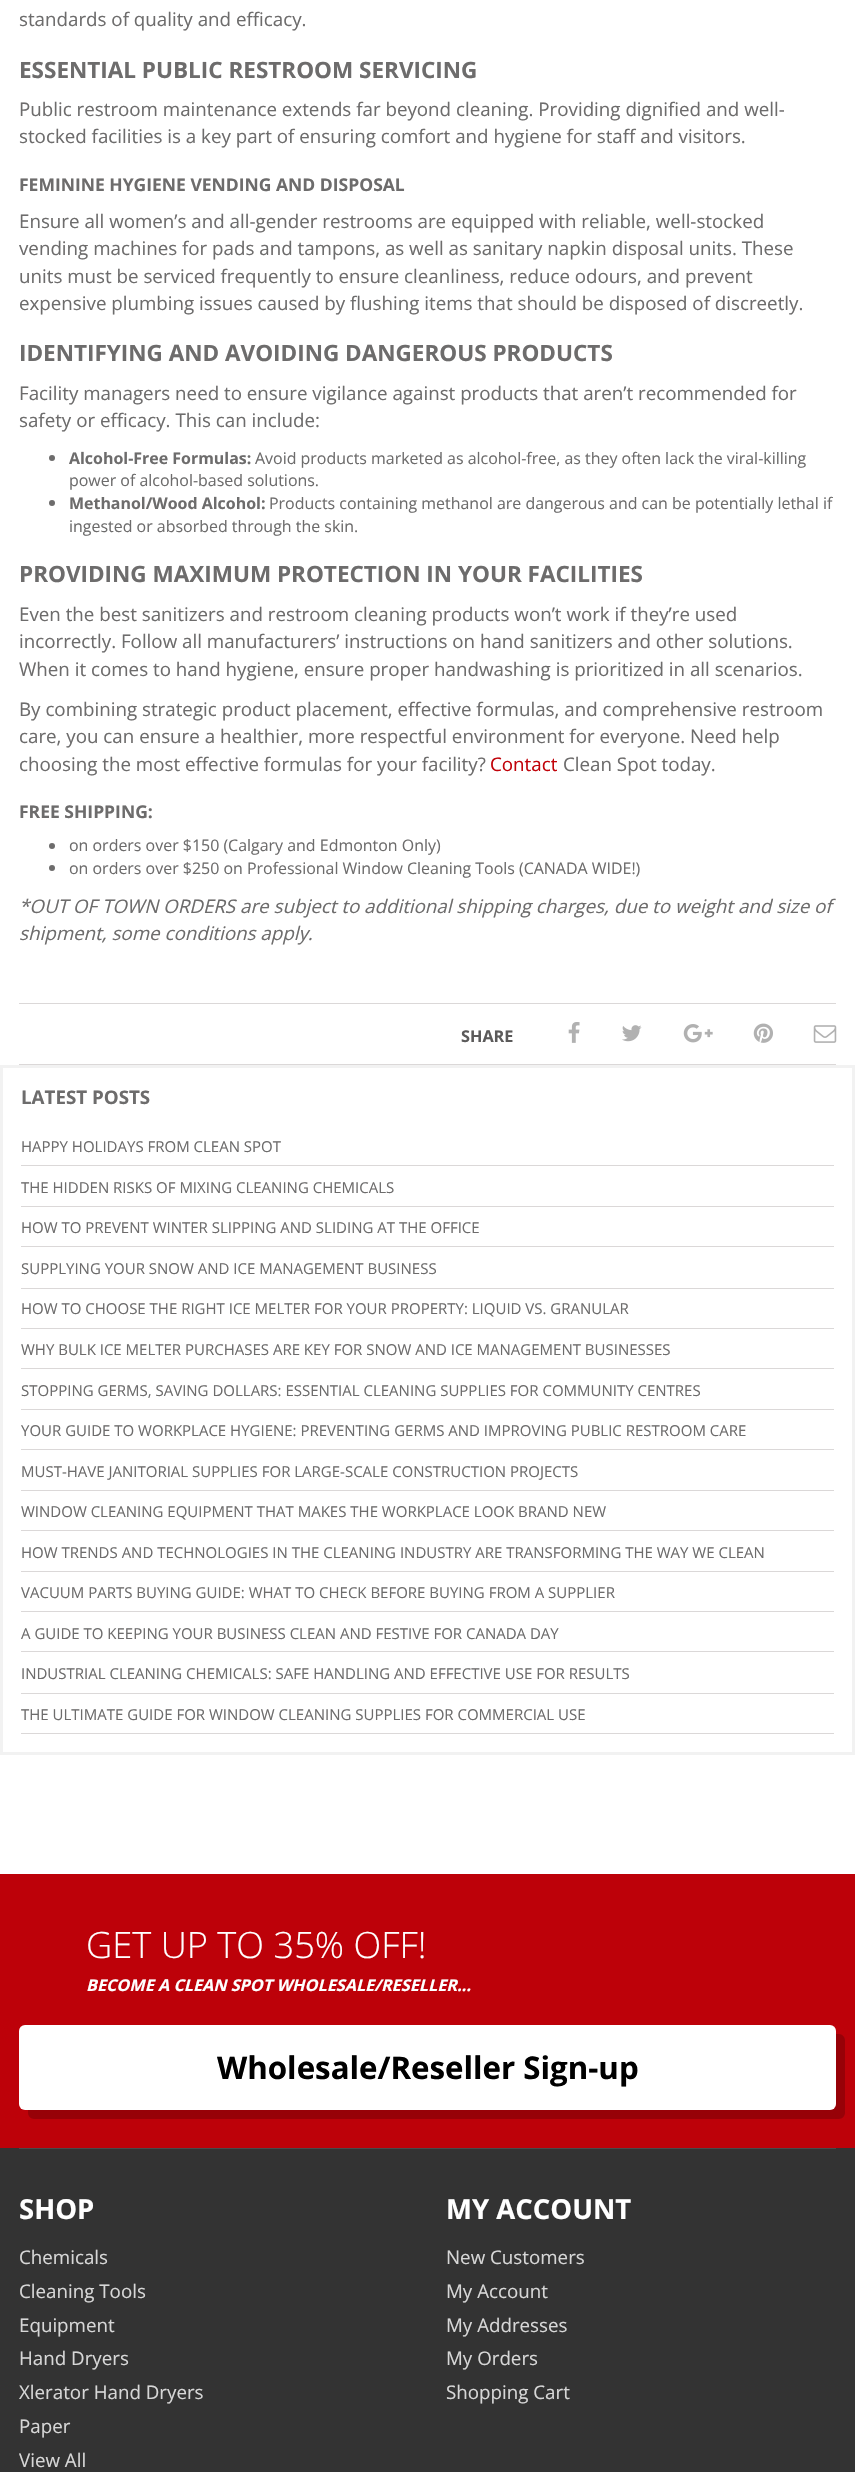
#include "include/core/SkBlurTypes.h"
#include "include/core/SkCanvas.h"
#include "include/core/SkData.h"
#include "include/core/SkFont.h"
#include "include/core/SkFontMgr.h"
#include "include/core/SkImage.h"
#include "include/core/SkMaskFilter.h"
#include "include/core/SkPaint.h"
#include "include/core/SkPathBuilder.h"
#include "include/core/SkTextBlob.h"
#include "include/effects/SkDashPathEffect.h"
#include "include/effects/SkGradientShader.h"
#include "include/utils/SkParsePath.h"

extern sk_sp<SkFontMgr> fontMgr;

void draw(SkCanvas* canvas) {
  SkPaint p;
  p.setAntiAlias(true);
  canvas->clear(SK_ColorWHITE);
  p.setColor(SkColorSetRGB(109, 108, 108));
  canvas->drawCircle(52, 458, 3, p);
  canvas->drawCircle(52, 503, 3, p);
  canvas->drawCircle(52, 846, 3, p);
  canvas->drawCircle(52, 868, 3, p);
  p.setColor(SkColorSetRGB(219, 216, 216));
  canvas->drawRect(SkRect::MakeLTRB(19, 1003, 836, 1004), p);
  canvas->drawRect(SkRect::MakeLTRB(19, 1064, 836, 1065), p);
  canvas->drawImageRect(SkImages::DeferredFromEncodedData(SkData::MakeFromFileName("images/1.png")), SkRect::MakeLTRB(568, 1022, 580, 1043), SkSamplingOptions());
  canvas->drawImageRect(SkImages::DeferredFromEncodedData(SkData::MakeFromFileName("images/2.png")), SkRect::MakeLTRB(622, 1025, 642, 1042), SkSamplingOptions());
  canvas->drawImageRect(SkImages::DeferredFromEncodedData(SkData::MakeFromFileName("images/3.png")), SkRect::MakeLTRB(683, 1024, 713, 1043), SkSamplingOptions());
  canvas->drawImageRect(SkImages::DeferredFromEncodedData(SkData::MakeFromFileName("images/4.png")), SkRect::MakeLTRB(753, 1023, 773, 1043), SkSamplingOptions());
  canvas->drawImageRect(SkImages::DeferredFromEncodedData(SkData::MakeFromFileName("images/5.png")), SkRect::MakeLTRB(813, 1025, 837, 1043), SkSamplingOptions());
  p.setStyle(SkPaint::kStroke_Style);
  p.setStrokeWidth(3);
  p.setColor(SkColorSetRGB(242, 242, 242));
  canvas->drawRect(SkRect::MakeLTRB(1.5f, 1066.5f, 853.5f, 1753.5f), p);
  p.setStyle(SkPaint::kFill_Style);
  p.setColor(SkColorSetRGB(219, 216, 216));
  canvas->drawRect(SkRect::MakeLTRB(21, 1165, 834, 1166), p);
  canvas->drawRect(SkRect::MakeLTRB(21, 1206, 834, 1207), p);
  canvas->drawRect(SkRect::MakeLTRB(21, 1246, 834, 1247), p);
  canvas->drawRect(SkRect::MakeLTRB(21, 1288, 834, 1289), p);
  canvas->drawRect(SkRect::MakeLTRB(21, 1328, 834, 1329), p);
  canvas->drawRect(SkRect::MakeLTRB(21, 1368, 834, 1369), p);
  canvas->drawRect(SkRect::MakeLTRB(21, 1409, 834, 1410), p);
  canvas->drawRect(SkRect::MakeLTRB(21, 1449, 834, 1450), p);
  canvas->drawRect(SkRect::MakeLTRB(21, 1490, 834, 1491), p);
  canvas->drawRect(SkRect::MakeLTRB(21, 1530, 834, 1531), p);
  canvas->drawRect(SkRect::MakeLTRB(21, 1571, 834, 1572), p);
  canvas->drawRect(SkRect::MakeLTRB(21, 1611, 834, 1612), p);
  canvas->drawRect(SkRect::MakeLTRB(21, 1651, 834, 1652), p);
  canvas->drawRect(SkRect::MakeLTRB(21, 1693, 834, 1694), p);
  canvas->drawRect(SkRect::MakeLTRB(21, 1733, 834, 1734), p);
  p.setColor(SkColorSetRGB(189, 1, 9));
  canvas->drawRect(SkRect::MakeLTRB(0, 1874, 855, 2148), p);
  p.setColor(SkColorSetRGB(151, 1, 7));
  canvas->drawPath(SkPathBuilder().moveTo(28, 2110).lineTo(28, 2113).cubicTo(28, 2116, 31, 2119, 34, 2119).lineTo(839, 2119).cubicTo(842, 2119, 845, 2116, 845, 2113).lineTo(845, 2040).cubicTo(845, 2037, 842, 2034, 839, 2034).lineTo(836, 2034).lineTo(836, 2104).cubicTo(836, 2107, 833, 2110, 830, 2110).close().detach(), p);
  p.setColor(SK_ColorWHITE);
  canvas->drawRoundRect(SkRect::MakeLTRB(19, 2025, 836, 2110), 6, 6, p);
  p.setColor(SkColorSetRGB(51, 51, 51));
  canvas->drawRect(SkRect::MakeLTRB(0, 2148, 855, 2472), p);
  p.setColor(SkColorSetRGB(74, 74, 74));
  canvas->drawRect(SkRect::MakeLTRB(19, 2148, 836, 2149), p);
  SkFont font1(fontMgr->matchFamilyStyle("Open Sans", SkFontStyle::Normal()), 18.75f);
  font1.setSubpixel(true);
  p.setColor(SkColorSetRGB(109, 108, 108));
  canvas->drawString("standards of quality and efficacy.", 19, 26, font1, p);
  SkFont font2(fontMgr->matchFamilyStyle("Open Sans", SkFontStyle::Bold()), 22.5f);
  font2.setSubpixel(true);
  canvas->drawString("ESSENTIAL PUBLIC RESTROOM SERVICING", 19, 78, font2, p);
  canvas->drawString("Public restroom maintenance extends far beyond cleaning. Providing dignified and well-", 19, 116, font1, p);
  canvas->drawString("stocked facilities is a key part of ensuring comfort and hygiene for staff and visitors.", 19, 143, font1, p);
  SkFont font3(fontMgr->matchFamilyStyle("Open Sans", SkFontStyle::Bold()), 17.5f);
  font3.setSubpixel(true);
  canvas->drawString("FEMININE HYGIENE VENDING AND DISPOSAL", 19, 191, font3, p);
  canvas->drawString("Ensure all women’s and all-gender restrooms are equipped with reliable, well-stocked", 19, 228, font1, p);
  canvas->drawString("vending machines for pads and tampons, as well as sanitary napkin disposal units. These", 19, 255, font1, p);
  canvas->drawString("units must be serviced frequently to ensure cleanliness, reduce odours, and prevent", 19, 283, font1, p);
  canvas->drawString("expensive plumbing issues caused by flushing items that should be disposed of discreetly.", 19, 310, font1, p);
  canvas->drawString("IDENTIFYING AND AVOIDING DANGEROUS PRODUCTS", 19, 361, font2, p);
  canvas->drawString("Facility managers need to ensure vigilance against products that aren’t recommended for", 19, 400, font1, p);
  canvas->drawString("safety or efficacy. This can include:", 19, 427, font1, p);
  SkFont font4(fontMgr->matchFamilyStyle("Open Sans", SkFontStyle::Bold()), 15.95f);
  font4.setSubpixel(true);
  canvas->drawString("Alcohol-Free Formulas:", 69, 464, font4, p);
  SkFont font5(fontMgr->matchFamilyStyle("Open Sans", SkFontStyle::Normal()), 15.95f);
  font5.setSubpixel(true);
  canvas->drawString("Avoid products marketed as alcohol-free, as they often lack the viral-killing", 255, 464, font5, p);
  canvas->drawString("power of alcohol-based solutions.", 69, 486, font5, p);
  canvas->drawString("Methanol/Wood Alcohol:", 69, 509, font4, p);
  canvas->drawString("Products containing methanol are dangerous and can be potentially lethal if", 269, 509, font5, p);
  canvas->drawString("ingested or absorbed through the skin.", 69, 532, font5, p);
  canvas->drawString("PROVIDING MAXIMUM PROTECTION IN YOUR FACILITIES", 19, 582, font2, p);
  canvas->drawString("Even the best sanitizers and restroom cleaning products won’t work if they’re used", 19, 621, font1, p);
  canvas->drawString("incorrectly. Follow all manufacturers’ instructions on hand sanitizers and other solutions.", 19, 648, font1, p);
  canvas->drawString("When it comes to hand hygiene, ensure proper handwashing is prioritized in all scenarios.", 19, 676, font1, p);
  canvas->drawString("By combining strategic product placement, effective formulas, and comprehensive restroom", 19, 716, font1, p);
  canvas->drawString("care, you can ensure a healthier, more respectful environment for everyone. Need help", 19, 743, font1, p);
  canvas->drawString("choosing the most effective formulas for your facility?", 19, 771, font1, p);
  p.setColor(SkColorSetRGB(193, 3, 10));
  canvas->drawString("Contact", 490, 771, font1, p);
  p.setColor(SkColorSetRGB(109, 108, 108));
  canvas->drawString("Clean Spot today.", 563, 771, font1, p);
  canvas->drawString("FREE SHIPPING:", 19, 818, font3, p);
  canvas->drawString("on orders over $150 (Calgary and Edmonton Only)", 69, 851, font5, p);
  canvas->drawString("on orders over $250 on Professional Window Cleaning Tools (CANADA WIDE!)", 69, 874, font5, p);
  SkFont font6(fontMgr->matchFamilyStyle("Open Sans", SkFontStyle::Italic()), 18.75f);
  font6.setSubpixel(true);
  canvas->drawString("*OUT OF TOWN ORDERS are subject to additional shipping charges, due to weight and size of", 19, 913, font6, p);
  canvas->drawString("shipment, some conditions apply.", 19, 940, font6, p);
  SkFont font7(fontMgr->matchFamilyStyle("Open Sans", SkFontStyle::Bold()), 16.25f);
  font7.setSubpixel(true);
  p.setColor(SkColorSetRGB(91, 90, 90));
  canvas->drawString("SHARE", 461, 1042, font7, p);
  SkFont font8(fontMgr->matchFamilyStyle("Open Sans", SkFontStyle::Bold()), 18.75f);
  font8.setSubpixel(true);
  p.setColor(SkColorSetRGB(109, 108, 108));
  canvas->drawString("LATEST POSTS", 21, 1104, font8, p);
  SkFont font9(fontMgr->matchFamilyStyle("Open Sans", SkFontStyle::Normal()), 15);
  font9.setSubpixel(true);
  canvas->drawString("HAPPY HOLIDAYS FROM CLEAN SPOT", 21, 1152, font9, p);
  canvas->drawString("THE HIDDEN RISKS OF MIXING CLEANING CHEMICALS", 21, 1193, font9, p);
  canvas->drawString("HOW TO PREVENT WINTER SLIPPING AND SLIDING AT THE OFFICE", 21, 1233, font9, p);
  canvas->drawString("SUPPLYING YOUR SNOW AND ICE MANAGEMENT BUSINESS", 21, 1274, font9, p);
  canvas->drawString("HOW TO CHOOSE THE RIGHT ICE MELTER FOR YOUR PROPERTY: LIQUID VS. GRANULAR", 21, 1314, font9, p);
  canvas->drawString("WHY BULK ICE MELTER PURCHASES ARE KEY FOR SNOW AND ICE MANAGEMENT BUSINESSES", 21, 1355, font9, p);
  canvas->drawString("STOPPING GERMS, SAVING DOLLARS: ESSENTIAL CLEANING SUPPLIES FOR COMMUNITY CENTRES", 21, 1396, font9, p);
  canvas->drawString("YOUR GUIDE TO WORKPLACE HYGIENE: PREVENTING GERMS AND IMPROVING PUBLIC RESTROOM CARE", 21, 1436, font9, p);
  canvas->drawString("MUST-HAVE JANITORIAL SUPPLIES FOR LARGE-SCALE CONSTRUCTION PROJECTS", 21, 1477, font9, p);
  canvas->drawString("WINDOW CLEANING EQUIPMENT THAT MAKES THE WORKPLACE LOOK BRAND NEW", 21, 1517, font9, p);
  canvas->drawString("HOW TRENDS AND TECHNOLOGIES IN THE CLEANING INDUSTRY ARE TRANSFORMING THE WAY WE CLEAN", 21, 1558, font9, p);
  canvas->drawString("VACUUM PARTS BUYING GUIDE: WHAT TO CHECK BEFORE BUYING FROM A SUPPLIER", 21, 1598, font9, p);
  canvas->drawString("A GUIDE TO KEEPING YOUR BUSINESS CLEAN AND FESTIVE FOR CANADA DAY", 21, 1639, font9, p);
  canvas->drawString("INDUSTRIAL CLEANING CHEMICALS: SAFE HANDLING AND EFFECTIVE USE FOR RESULTS", 21, 1679, font9, p);
  canvas->drawString("THE ULTIMATE GUIDE FOR WINDOW CLEANING SUPPLIES FOR COMMERCIAL USE", 21, 1720, font9, p);
  SkFont font10(fontMgr->matchFamilyStyle("Open Sans", SkFontStyle(300, SkFontStyle::kNormal_Width, SkFontStyle::kUpright_Slant)), 36.25f);
  font10.setSubpixel(true);
  p.setColor(SK_ColorWHITE);
  canvas->drawString("GET UP TO 35% OFF!", 86, 1958, font10, p);
  SkFont font11(fontMgr->matchFamilyStyle("Open Sans", SkFontStyle::BoldItalic()), 16.25f);
  font11.setSubpixel(true);
  canvas->drawString("BECOME A CLEAN SPOT WHOLESALE/RESELLER...", 86, 1991, font11, p);
  SkFont font12(fontMgr->matchFamilyStyle("Open Sans", SkFontStyle::Bold()), 31.25f);
  font12.setSubpixel(true);
  p.setColor(SK_ColorBLACK);
  canvas->drawString("Wholesale/Reseller Sign-up", 217, 2079, font12, p);
  SkFont font13(fontMgr->matchFamilyStyle("Open Sans", SkFontStyle::Bold()), 27.5f);
  font13.setSubpixel(true);
  p.setColor(SK_ColorWHITE);
  canvas->drawString("SHOP", 19, 2219, font13, p);
  p.setColor(SkColorSetRGB(215, 215, 215));
  canvas->drawString("Chemicals", 19, 2264, font1, p);
  canvas->drawString("Cleaning Tools", 19, 2298, font1, p);
  canvas->drawString("Equipment", 19, 2332, font1, p);
  canvas->drawString("Hand Dryers", 19, 2365, font1, p);
  canvas->drawString("Xlerator Hand Dryers", 19, 2399, font1, p);
  canvas->drawString("Paper", 19, 2433, font1, p);
  canvas->drawString("View All", 19, 2467, font1, p);
  p.setColor(SK_ColorWHITE);
  canvas->drawString("MY ACCOUNT", 446, 2219, font13, p);
  p.setColor(SkColorSetRGB(215, 215, 215));
  canvas->drawString("New Customers", 446, 2264, font1, p);
  canvas->drawString("My Account", 446, 2298, font1, p);
  canvas->drawString("My Addresses", 446, 2332, font1, p);
  canvas->drawString("My Orders", 446, 2365, font1, p);
  canvas->drawString("Shopping Cart", 446, 2399, font1, p);
}
